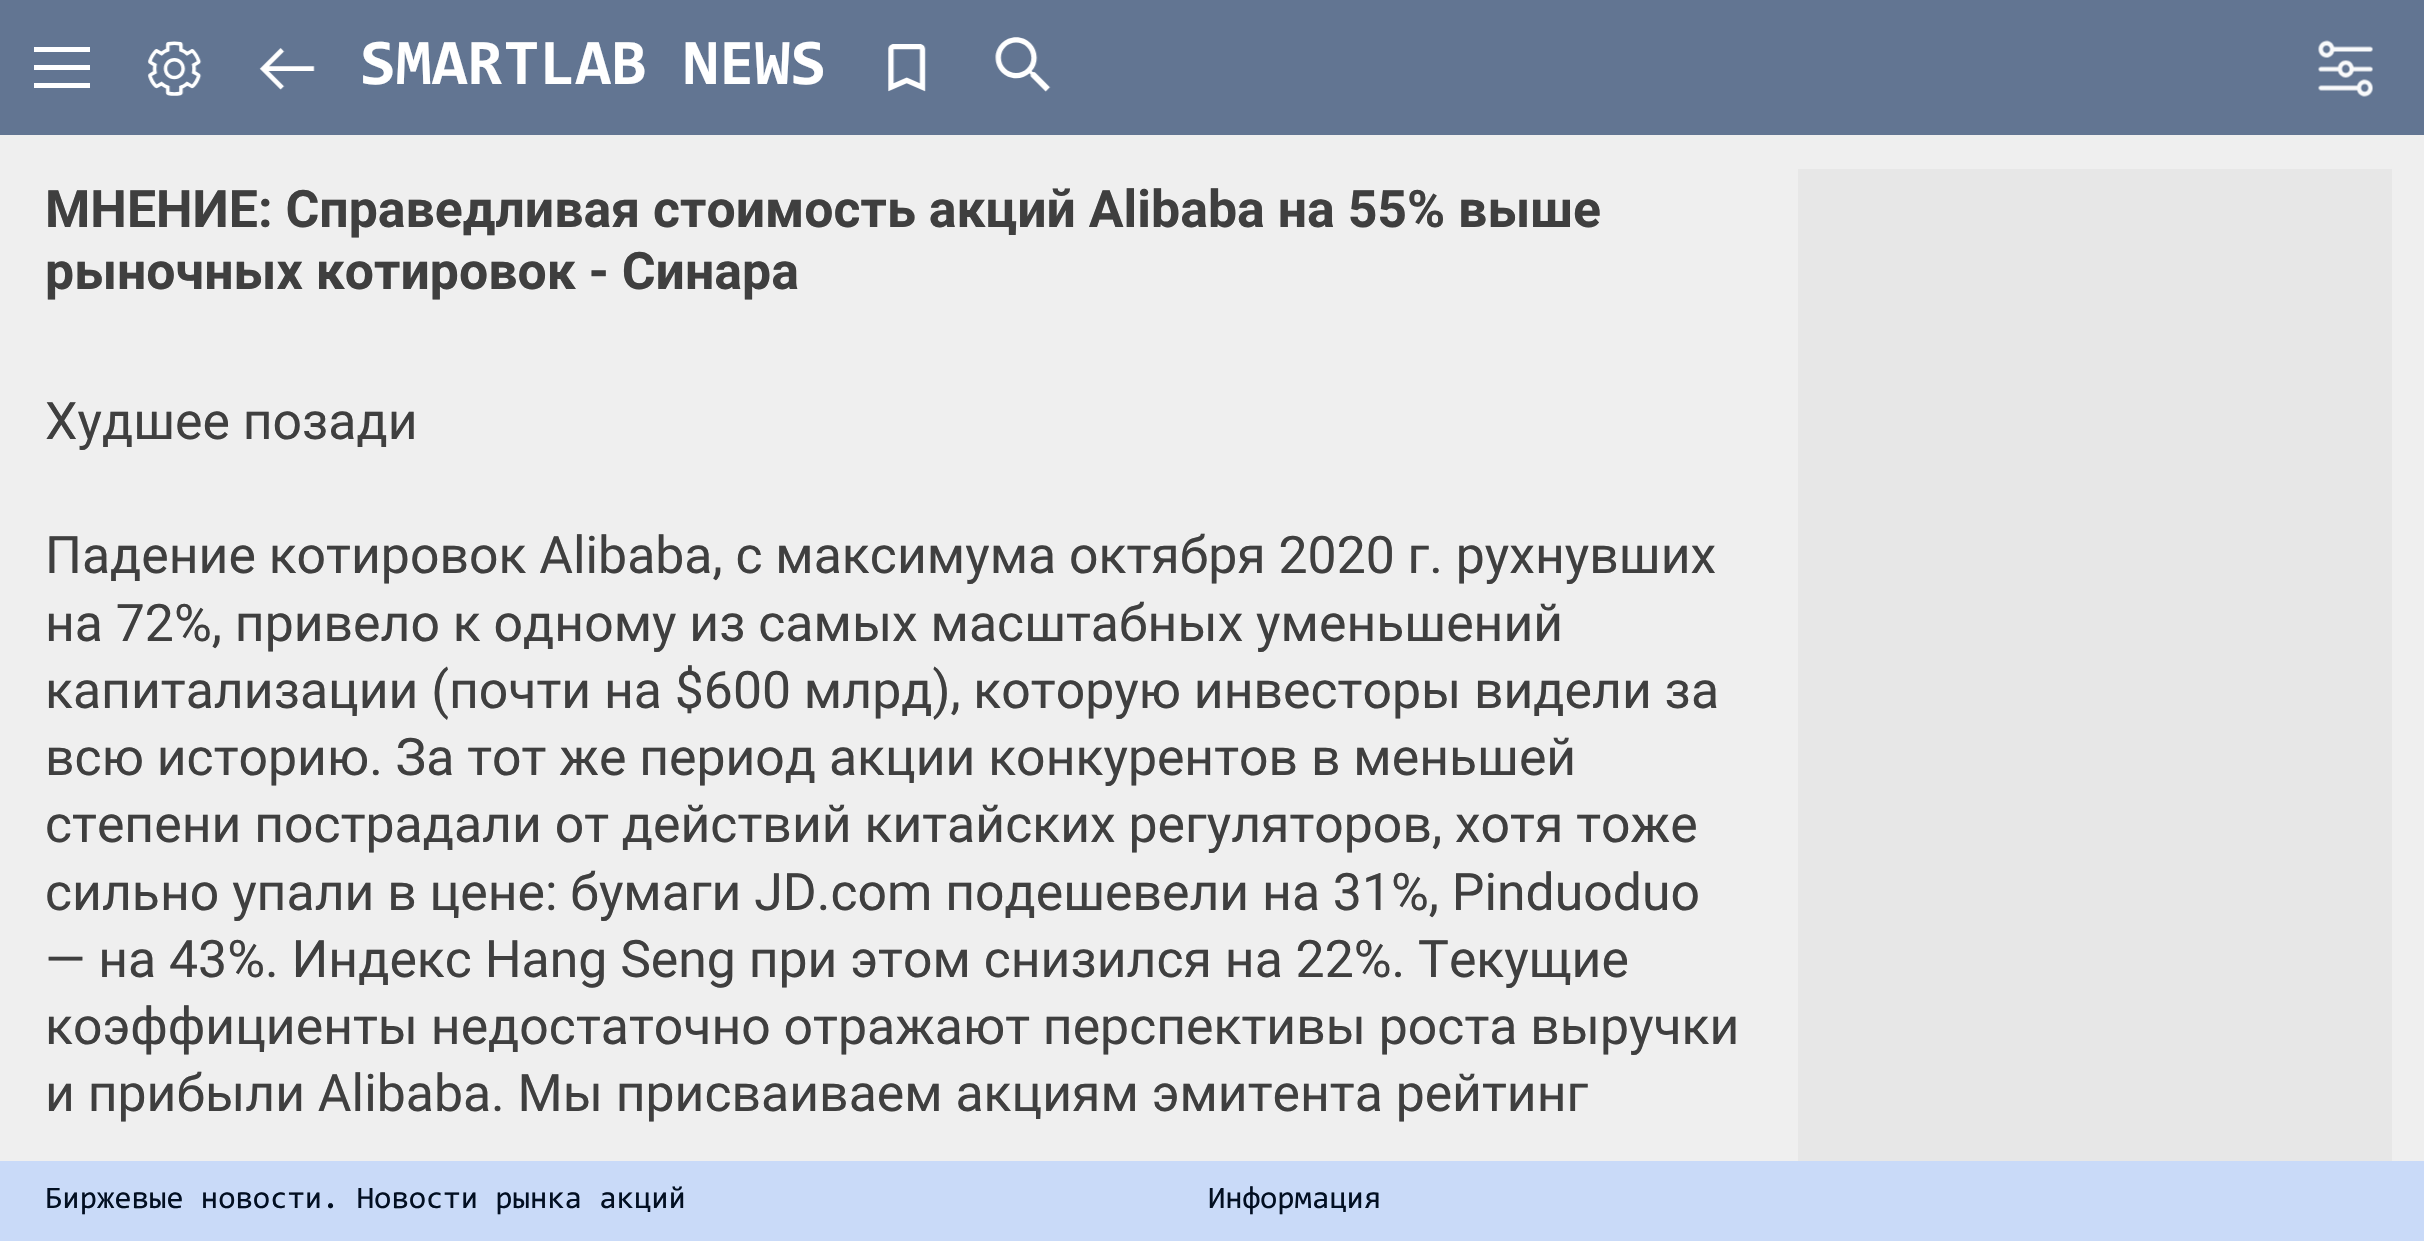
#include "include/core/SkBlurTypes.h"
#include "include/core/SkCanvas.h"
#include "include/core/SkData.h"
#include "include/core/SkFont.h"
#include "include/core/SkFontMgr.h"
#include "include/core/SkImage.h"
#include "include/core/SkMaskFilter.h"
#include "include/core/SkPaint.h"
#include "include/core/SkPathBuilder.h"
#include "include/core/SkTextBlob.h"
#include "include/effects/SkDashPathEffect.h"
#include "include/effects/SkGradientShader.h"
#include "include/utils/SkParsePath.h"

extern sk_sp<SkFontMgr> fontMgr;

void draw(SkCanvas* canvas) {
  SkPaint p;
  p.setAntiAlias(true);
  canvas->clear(SkColorSetRGB(239, 239, 239));
  p.setColor(SkColorSetRGB(98, 117, 146));
  canvas->drawRect(SkRect::MakeLTRB(0, 0, 2424, 135), p);
  p.setColor(SK_ColorWHITE);
  canvas->drawRect(SkRect::MakeLTRB(34, 47, 90, 52), p);
  canvas->drawRect(SkRect::MakeLTRB(34, 65, 90, 70), p);
  canvas->drawRect(SkRect::MakeLTRB(34, 83, 90, 88), p);
  canvas->drawImageRect(SkImages::DeferredFromEncodedData(SkData::MakeFromFileName("images/1.png")), SkRect::MakeLTRB(147, 41, 202, 96), SkSamplingOptions());
  canvas->drawImageRect(SkImages::DeferredFromEncodedData(SkData::MakeFromFileName("images/2.png")), SkRect::MakeLTRB(259, 48, 315, 90), SkSamplingOptions());
  canvas->drawImageRect(SkImages::DeferredFromEncodedData(SkData::MakeFromFileName("images/3.png")), SkRect::MakeLTRB(888, 44, 926, 92), SkSamplingOptions());
  canvas->drawImageRect(SkImages::DeferredFromEncodedData(SkData::MakeFromFileName("images/4.png")), SkRect::MakeLTRB(995, 37, 1051, 92), SkSamplingOptions());
  canvas->drawImageRect(SkImages::DeferredFromEncodedData(SkData::MakeFromFileName("images/5.png")), SkRect::MakeLTRB(2318, 40, 2373, 97), SkSamplingOptions());
  p.setColor(SkColorSetRGB(231, 231, 231));
  canvas->drawRect(SkRect::MakeLTRB(1798, 169, 2392, 1161), p);
  p.setColor(SkColorSetRGB(201, 218, 248));
  canvas->drawRect(SkRect::MakeLTRB(0, 1161, 2424, 1241), p);
  SkFont font1(fontMgr->matchFamilyStyle("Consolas", SkFontStyle::Bold()), 65.25f);
  font1.setSubpixel(true);
  p.setColor(SK_ColorWHITE);
  canvas->drawString("SMARTLAB NEWS", 360, 84, font1, p);
  SkFont font2(fontMgr->matchFamilyStyle("Roboto", SkFontStyle::Bold()), 51.75f);
  font2.setSubpixel(true);
  p.setColor(SkColorSetRGB(63, 63, 63));
  canvas->drawString("МНЕНИЕ: Справедливая стоимость акций Alibaba на 55% выше", 45, 227, font2, p);
  canvas->drawString("рыночных котировок - Синара", 45, 289, font2, p);
  SkFont font3(fontMgr->matchFamilyStyle("Roboto", SkFontStyle::Normal()), 51.75f);
  font3.setSubpixel(true);
  canvas->drawString("Худшее позади", 45, 439, font3, p);
  canvas->drawString("Падение котировок Alibaba, с максимума октября 2020 г. рухнувших", 45, 573, font3, p);
  canvas->drawString("на 72%, привело к одному из самых масштабных уменьшений", 45, 641, font3, p);
  canvas->drawString("капитализации (почти на $600 млрд), которую инвесторы видели за", 45, 708, font3, p);
  canvas->drawString("всю историю. За тот же период акции конкурентов в меньшей", 45, 775, font3, p);
  canvas->drawString("степени пострадали от действий китайских регуляторов, хотя тоже", 45, 842, font3, p);
  canvas->drawString("сильно упали в цене: бумаги JD.com подешевели на 31%, Pinduoduo", 45, 910, font3, p);
  canvas->drawString("— на 43%. Индекс Hang Seng при этом снизился на 22%. Текущие", 45, 977, font3, p);
  canvas->drawString("коэффициенты недостаточно отражают перспективы роста выручки", 45, 1044, font3, p);
  canvas->drawString("и прибыли Alibaba. Мы присваиваем акциям эмитента рейтинг", 45, 1111, font3, p);
  SkFont font4(fontMgr->matchFamilyStyle("Consolas", SkFontStyle::Normal()), 31.5f);
  font4.setSubpixel(true);
  p.setColor(SkColorSetRGB(2, 15, 34));
  canvas->drawString("Биржевые новости. Новости рынка акций", 45, 1208, font4, p);
  canvas->drawString("Информация", 1208, 1208, font4, p);
}
